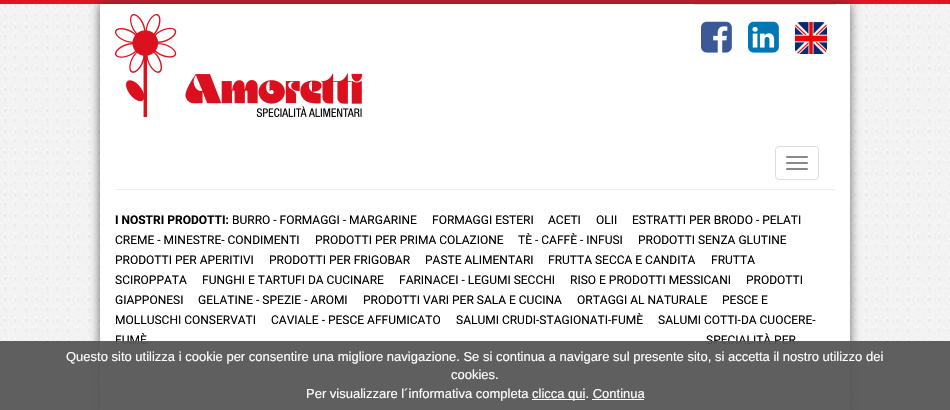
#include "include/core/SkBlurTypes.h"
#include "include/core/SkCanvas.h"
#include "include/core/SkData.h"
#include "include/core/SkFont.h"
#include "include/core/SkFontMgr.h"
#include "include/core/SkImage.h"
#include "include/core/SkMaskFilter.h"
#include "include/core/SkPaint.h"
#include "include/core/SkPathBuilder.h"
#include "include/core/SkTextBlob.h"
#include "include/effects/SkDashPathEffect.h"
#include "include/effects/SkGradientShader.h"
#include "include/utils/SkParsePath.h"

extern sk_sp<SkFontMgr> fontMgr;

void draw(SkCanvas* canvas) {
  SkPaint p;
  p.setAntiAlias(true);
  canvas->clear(SK_ColorWHITE);
  canvas->drawImageRect(SkImages::DeferredFromEncodedData(SkData::MakeFromFileName("images/1.png")), SkRect::MakeLTRB(0, 4, 950, 410), SkSamplingOptions());
  p.setColor(SkColorSetRGB(217, 23, 40));
  canvas->drawRect(SkRect::MakeLTRB(0, 0, 950, 4), p);
  p.setColor(SkColorSetARGB(191, 50, 50, 50));
  p.setMaskFilter(SkMaskFilter::MakeBlur(kNormal_SkBlurStyle, 5));
  canvas->drawRect(SkRect::MakeLTRB(100, 4, 850, 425), p);
  p.setMaskFilter(nullptr);
  p.setColor(SK_ColorWHITE);
  canvas->drawRect(SkRect::MakeLTRB(100, 4, 850, 410), p);
  canvas->drawImageRect(SkImages::DeferredFromEncodedData(SkData::MakeFromFileName("images/2.png")), SkRect::MakeLTRB(115, 14, 362, 117), SkSamplingOptions());
  p.setColor(SkColorSetRGB(221, 221, 221));
  canvas->drawRect(SkRect::MakeLTRB(693, 4, 836, 5), p);
  canvas->drawImageRect(SkImages::DeferredFromEncodedData(SkData::MakeFromFileName("images/3.png")), SkRect::MakeLTRB(795, 22, 827, 54), SkSamplingOptions());
  canvas->drawImageRect(SkImages::DeferredFromEncodedData(SkData::MakeFromFileName("images/4.png")), SkRect::MakeLTRB(701, 21, 732, 53), SkSamplingOptions());
  canvas->drawImageRect(SkImages::DeferredFromEncodedData(SkData::MakeFromFileName("images/5.png")), SkRect::MakeLTRB(748, 21, 779, 53), SkSamplingOptions());
  p.setStyle(SkPaint::kStroke_Style);
  p.setStrokeWidth(1);
  canvas->drawRoundRect(SkRect::MakeLTRB(775.5f, 146.5f, 818.5f, 179.5f), 3.5f, 3.5f, p);
  p.setStyle(SkPaint::kFill_Style);
  p.setColor(SkColorSetRGB(136, 136, 136));
  canvas->drawRoundRect(SkRect::MakeLTRB(786, 156, 808, 158), 1, 1, p);
  canvas->drawRoundRect(SkRect::MakeLTRB(786, 162, 808, 164), 1, 1, p);
  canvas->drawRoundRect(SkRect::MakeLTRB(786, 168, 808, 170), 1, 1, p);
  p.setColor(SkColorSetRGB(238, 238, 238));
  canvas->drawRect(SkRect::MakeLTRB(115, 189, 835, 190), p);
  SkFont font1(fontMgr->matchFamilyStyle("Roboto", SkFontStyle::Bold()), 12);
  font1.setSubpixel(true);
  p.setColor(SK_ColorBLACK);
  canvas->drawString("I NOSTRI PRODOTTI:", 115, 224, font1, p);
  SkFont font2(fontMgr->matchFamilyStyle("Roboto", SkFontStyle::Normal()), 12);
  font2.setSubpixel(true);
  canvas->drawString("BURRO - FORMAGGI - MARGARINE", 232, 224, font2, p);
  canvas->drawString("FORMAGGI ESTERI", 432, 224, font2, p);
  canvas->drawString("ACETI", 548, 224, font2, p);
  canvas->drawString("OLII", 596, 224, font2, p);
  canvas->drawString("ESTRATTI PER BRODO - PELATI", 632, 224, font2, p);
  canvas->drawString("CREME - MINESTRE- CONDIMENTI", 115, 244, font2, p);
  canvas->drawString("PRODOTTI PER PRIMA COLAZIONE", 315, 244, font2, p);
  canvas->drawString("TÈ - CAFFÈ - INFUSI", 518, 244, font2, p);
  canvas->drawString("PRODOTTI SENZA GLUTINE", 638, 244, font2, p);
  canvas->drawString("PRODOTTI PER APERITIVI", 115, 264, font2, p);
  canvas->drawString("PRODOTTI PER FRIGOBAR", 269, 264, font2, p);
  canvas->drawString("PASTE ALIMENTARI", 425, 264, font2, p);
  canvas->drawString("FRUTTA SECCA E CANDITA", 548, 264, font2, p);
  canvas->drawString("FRUTTA", 711, 264, font2, p);
  canvas->drawString("SCIROPPATA", 115, 284, font2, p);
  canvas->drawString("FUNGHI E TARTUFI DA CUCINARE", 202, 284, font2, p);
  canvas->drawString("FARINACEI - LEGUMI SECCHI", 399, 284, font2, p);
  canvas->drawString("RISO E PRODOTTI MESSICANI", 570, 284, font2, p);
  canvas->drawString("PRODOTTI", 746, 284, font2, p);
  canvas->drawString("GIAPPONESI", 115, 304, font2, p);
  canvas->drawString("GELATINE - SPEZIE - AROMI", 198, 304, font2, p);
  canvas->drawString("PRODOTTI VARI PER SALA E CUCINA", 363, 304, font2, p);
  canvas->drawString("ORTAGGI AL NATURALE", 577, 304, font2, p);
  canvas->drawString("PESCE E", 722, 304, font2, p);
  canvas->drawString("MOLLUSCHI CONSERVATI", 115, 324, font2, p);
  canvas->drawString("CAVIALE - PESCE AFFUMICATO", 271, 324, font2, p);
  canvas->drawString("SALUMI CRUDI-STAGIONATI-FUMÈ", 456, 324, font2, p);
  canvas->drawString("SALUMI COTTI-DA CUOCERE-", 658, 324, font2, p);
  canvas->drawString("FUMÈ", 115, 344, font2, p);
  canvas->drawString("SPECIALITÀ PER", 706, 344, font2, p);
  p.setColor(SkColorSetARGB(242, 86, 86, 86));
  canvas->drawRect(SkRect::MakeLTRB(0, 341, 950, 410), p);
  SkFont font3(fontMgr->matchFamilyStyle("Liberation Sans", SkFontStyle::Normal()), 13);
  font3.setSubpixel(true);
  p.setColor(SK_ColorWHITE);
  canvas->drawString("Questo sito utilizza i cookie per consentire una migliore navigazione. Se si continua a navigare sul presente sito, si accetta il nostro utilizzo dei", 66, 361, font3, p);
  canvas->drawString("cookies.", 451, 379, font3, p);
  canvas->drawString("Per visualizzare l´informativa completa", 306, 398, font3, p);
  canvas->drawRect(SkRect::MakeLTRB(532, 399, 585, 400), p);
  canvas->drawString("clicca qui. Continua", 532, 398, font3, p);
  canvas->drawRect(SkRect::MakeLTRB(592, 399, 644, 400), p);
}
